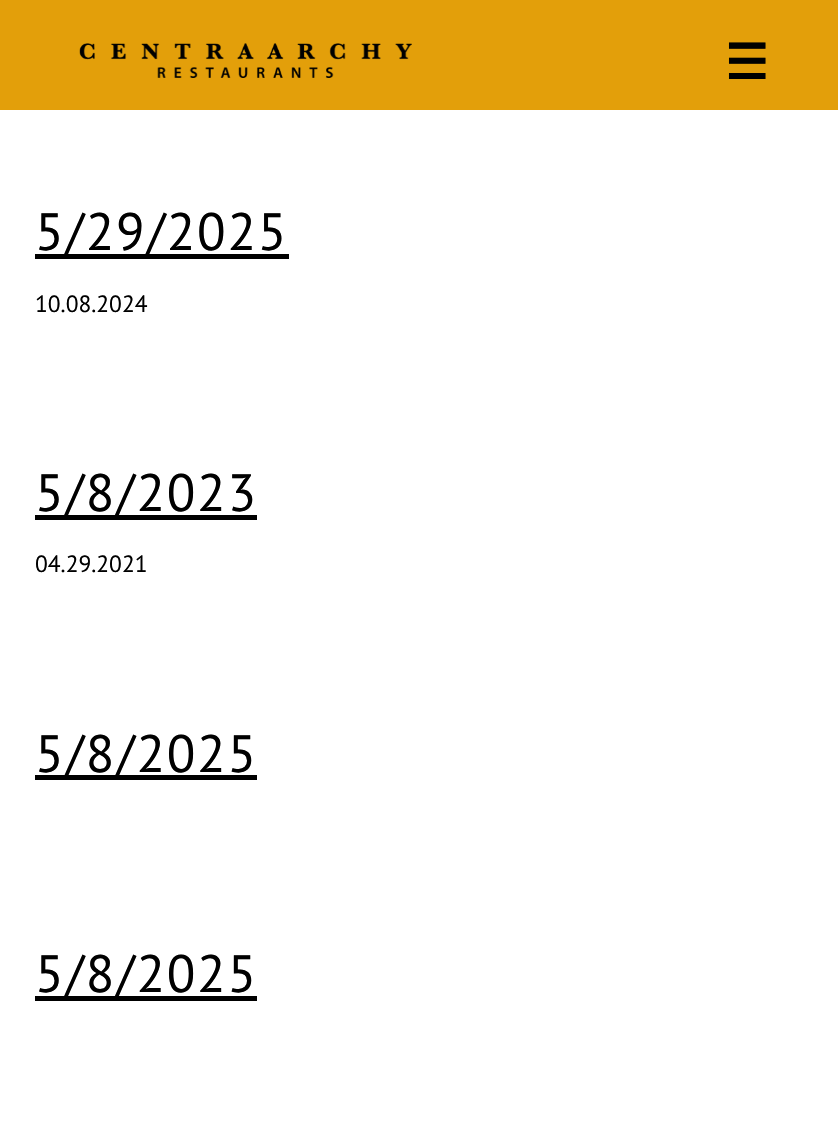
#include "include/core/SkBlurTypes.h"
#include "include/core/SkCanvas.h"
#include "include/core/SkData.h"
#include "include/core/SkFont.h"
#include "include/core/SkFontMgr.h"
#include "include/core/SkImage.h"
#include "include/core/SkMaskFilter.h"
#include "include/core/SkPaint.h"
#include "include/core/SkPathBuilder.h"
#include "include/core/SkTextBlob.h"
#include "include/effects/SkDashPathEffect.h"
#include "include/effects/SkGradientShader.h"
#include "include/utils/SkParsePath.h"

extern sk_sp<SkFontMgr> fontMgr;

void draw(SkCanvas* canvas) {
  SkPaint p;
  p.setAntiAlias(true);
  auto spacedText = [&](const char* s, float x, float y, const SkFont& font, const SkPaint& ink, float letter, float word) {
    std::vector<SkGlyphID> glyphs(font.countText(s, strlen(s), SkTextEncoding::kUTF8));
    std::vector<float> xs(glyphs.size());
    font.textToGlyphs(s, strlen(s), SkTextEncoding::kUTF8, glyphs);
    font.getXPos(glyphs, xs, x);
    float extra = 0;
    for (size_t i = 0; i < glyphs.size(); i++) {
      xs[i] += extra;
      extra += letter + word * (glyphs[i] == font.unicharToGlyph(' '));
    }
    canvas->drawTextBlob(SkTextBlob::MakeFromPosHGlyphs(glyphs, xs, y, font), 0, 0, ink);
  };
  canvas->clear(SK_ColorWHITE);
  p.setColor(SkColorSetRGB(227, 159, 10));
  canvas->drawRect(SkRect::MakeLTRB(0, 0, 838, 110), p);
  canvas->drawImageRect(SkImages::DeferredFromEncodedData(SkData::MakeFromFileName("images/1.png")), SkRect::MakeLTRB(79, 43, 412, 78), SkSamplingOptions());
  p.setColor(SK_ColorBLACK);
  canvas->drawRect(SkRect::MakeLTRB(35, 254, 289, 259), p);
  canvas->drawRect(SkRect::MakeLTRB(35, 515, 257, 520), p);
  canvas->drawRect(SkRect::MakeLTRB(35, 775, 257, 780), p);
  canvas->drawRect(SkRect::MakeLTRB(35, 996, 257, 1001), p);
  SkFont font1(fontMgr->matchFamilyStyle("DejaVu Sans", SkFontStyle::Bold()), 48);
  font1.setSubpixel(true);
  canvas->drawString("☰", 725, 79, font1, p);
  SkFont font2(fontMgr->matchFamilyStyle("PT Sans", SkFontStyle::Normal()), 52.5f);
  font2.setSubpixel(true);
  spacedText("5/29/2025", 35, 250, font2, p, 1.75f, 0);
  SkFont font3(fontMgr->matchFamilyStyle("PT Sans", SkFontStyle::Normal()), 23.5f);
  font3.setSubpixel(true);
  canvas->drawString("10.08.2024", 35, 312, font3, p);
  spacedText("5/8/2023", 35, 511, font2, p, 1.75f, 0);
  canvas->drawString("04.29.2021", 35, 572, font3, p);
  spacedText("5/8/2025", 35, 772, font2, p, 1.75f, 0);
  spacedText("5/8/2025", 35, 992, font2, p, 1.75f, 0);
}
